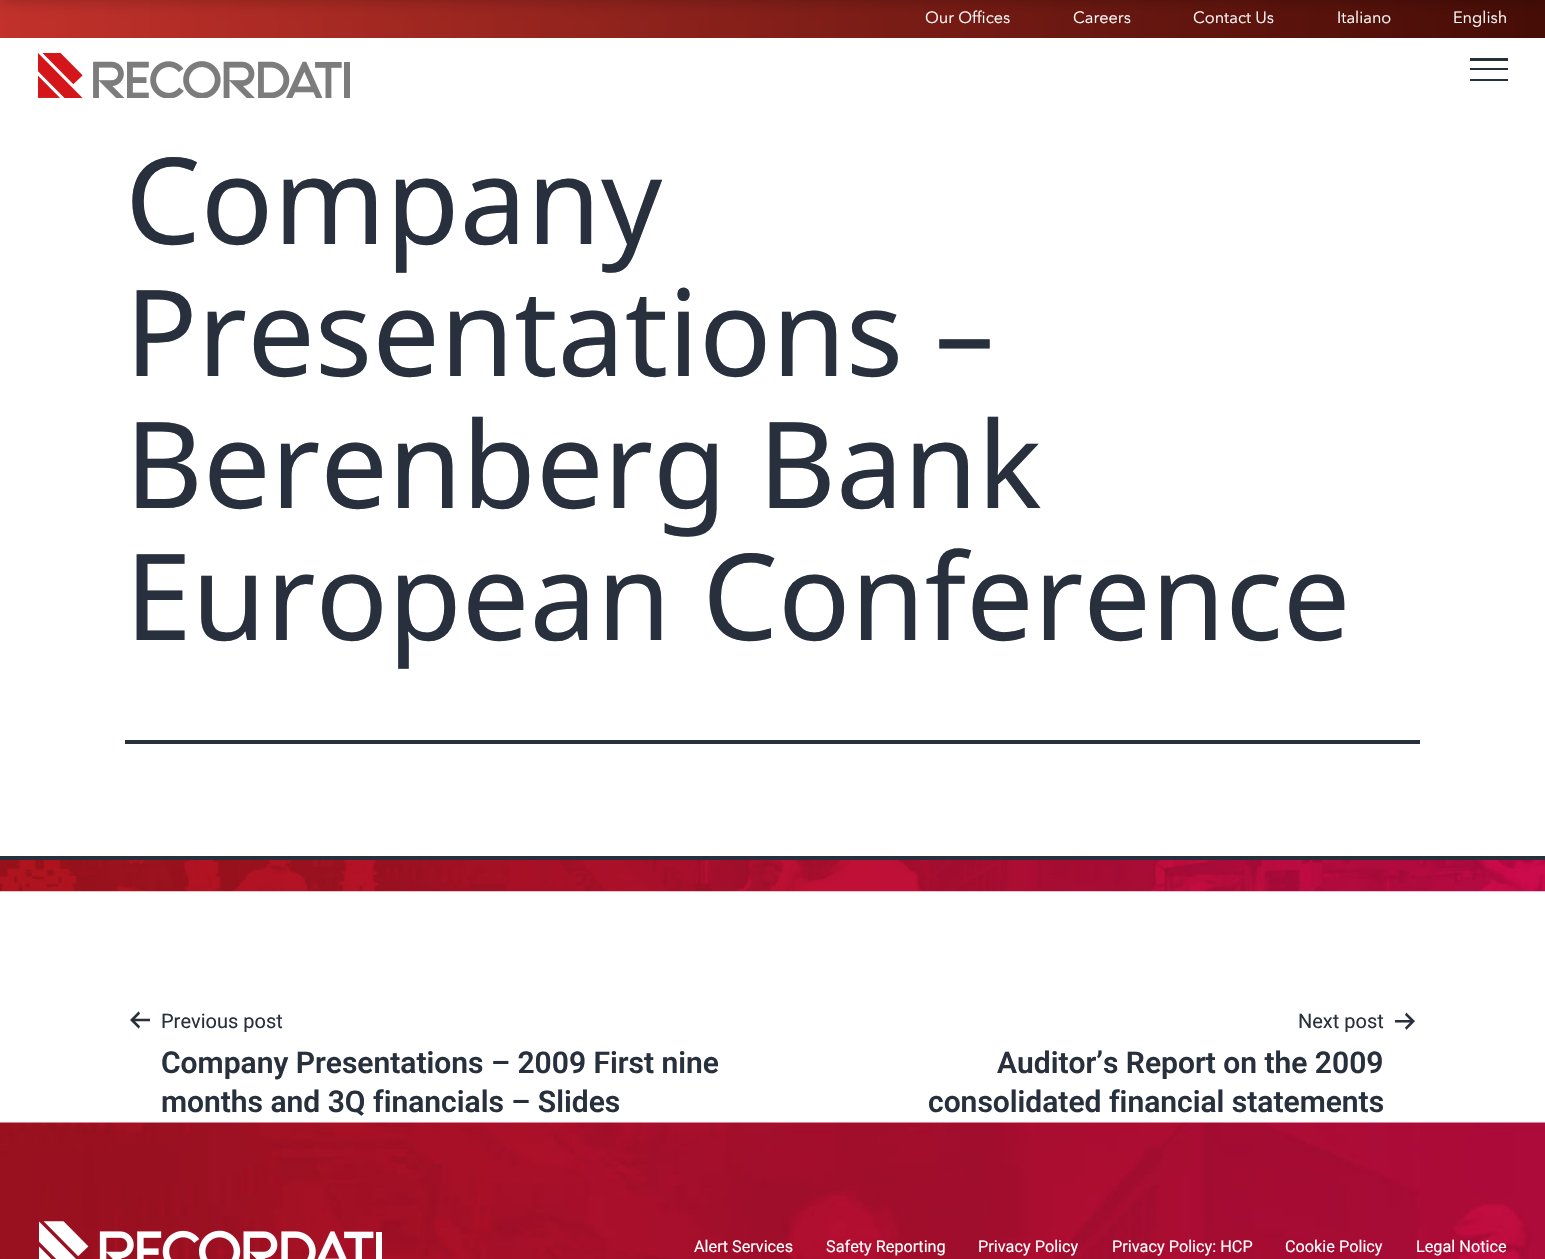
#include "include/core/SkBlurTypes.h"
#include "include/core/SkCanvas.h"
#include "include/core/SkData.h"
#include "include/core/SkFont.h"
#include "include/core/SkFontMgr.h"
#include "include/core/SkImage.h"
#include "include/core/SkMaskFilter.h"
#include "include/core/SkPaint.h"
#include "include/core/SkPathBuilder.h"
#include "include/core/SkTextBlob.h"
#include "include/effects/SkDashPathEffect.h"
#include "include/effects/SkGradientShader.h"
#include "include/utils/SkParsePath.h"

extern sk_sp<SkFontMgr> fontMgr;

void draw(SkCanvas* canvas) {
  SkPaint p;
  p.setAntiAlias(true);
  canvas->clear(SK_ColorWHITE);
  {
    const SkColor colors[] = {SkColorSetRGB(194, 49, 43), SkColorSetRGB(69, 13, 6)};
    const float stops[] = {0, 1};
    const SkPoint ends[] = {{0, 19}, {1545, 19}};
    p.setShader(SkGradientShader::MakeLinear(ends, colors, stops, 2, SkTileMode::kClamp));
    p.setAlpha(255);
  }
  canvas->drawRect(SkRect::MakeLTRB(0, 0, 1545, 38), p);
  p.setShader(nullptr);
  p.setColor(SkColorSetARGB(64, 0, 0, 0));
  p.setMaskFilter(SkMaskFilter::MakeBlur(kNormal_SkBlurStyle, 8));
  canvas->drawRect(SkRect::MakeLTRB(0, -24, 1545, 0), p);
  p.setMaskFilter(nullptr);
  canvas->drawImageRect(SkImages::DeferredFromEncodedData(SkData::MakeFromFileName("images/1.png")), SkRect::MakeLTRB(38, 53, 350, 98), SkSamplingOptions());
  p.setColor(SkColorSetRGB(37, 48, 56));
  canvas->drawRect(SkRect::MakeLTRB(1470, 58, 1508, 61), p);
  canvas->drawRect(SkRect::MakeLTRB(1470, 68, 1508, 70), p);
  canvas->drawRect(SkRect::MakeLTRB(1470, 79, 1508, 81), p);
  p.setColor(SkColorSetRGB(40, 48, 61));
  canvas->drawRect(SkRect::MakeLTRB(125, 740, 1420, 744), p);
  canvas->drawImageRect(SkImages::DeferredFromEncodedData(SkData::MakeFromFileName("images/2.png")), SkRect::MakeLTRB(0, 860, 1545, 892), SkSamplingOptions());
  canvas->drawRect(SkRect::MakeLTRB(0, 856, 1545, 860), p);
  canvas->drawImageRect(SkImages::DeferredFromEncodedData(SkData::MakeFromFileName("images/3.png")), SkRect::MakeLTRB(130, 1011, 150, 1029), SkSamplingOptions());
  canvas->drawImageRect(SkImages::DeferredFromEncodedData(SkData::MakeFromFileName("images/4.png")), SkRect::MakeLTRB(1395, 1012, 1415, 1030), SkSamplingOptions());
  canvas->drawImageRect(SkImages::DeferredFromEncodedData(SkData::MakeFromFileName("images/5.png")), SkRect::MakeLTRB(0, 1122, 1545, 1259), SkSamplingOptions());
  canvas->drawImageRect(SkImages::DeferredFromEncodedData(SkData::MakeFromFileName("images/6.png")), SkRect::MakeLTRB(39, 1221, 382, 1259), SkSamplingOptions());
  SkFont font1(fontMgr->matchFamilyStyle("Avenir Next", SkFontStyle::Normal()), 16.25f);
  font1.setSubpixel(true);
  p.setColor(SK_ColorWHITE);
  canvas->drawString("Our Offices", 925, 23, font1, p);
  canvas->drawString("Careers", 1073, 23, font1, p);
  canvas->drawString("Contact Us", 1193, 23, font1, p);
  canvas->drawString("Italiano", 1337, 23, font1, p);
  canvas->drawString("English", 1453, 23, font1, p);
  SkFont font2(fontMgr->matchFamilyStyle("Noto Sans", SkFontStyle::Normal()), 120);
  font2.setSubpixel(true);
  p.setColor(SkColorSetRGB(40, 48, 61));
  canvas->drawString("Company", 125, 244, font2, p);
  canvas->drawString("Presentations –", 125, 376, font2, p);
  canvas->drawString("Berenberg Bank", 125, 508, font2, p);
  canvas->drawString("European Conference", 125, 640, font2, p);
  SkFont font3(fontMgr->matchFamilyStyle("Roboto", SkFontStyle::Normal()), 20);
  font3.setSubpixel(true);
  canvas->drawString("Previous post", 161, 1028, font3, p);
  SkFont font4(fontMgr->matchFamilyStyle("Roboto", SkFontStyle(600, SkFontStyle::kNormal_Width, SkFontStyle::kUpright_Slant)), 30);
  font4.setSubpixel(true);
  canvas->drawString("Company Presentations – 2009 First nine", 161, 1073, font4, p);
  canvas->drawString("months and 3Q financials – Slides", 161, 1112, font4, p);
  canvas->drawString("Next post", 1298, 1028, font3, p);
  canvas->drawString("Auditor’s Report on the 2009", 997, 1073, font4, p);
  canvas->drawString("consolidated financial statements", 928, 1112, font4, p);
  SkFont font5(fontMgr->matchFamilyStyle("Roboto", SkFontStyle::Normal()), 16.25f);
  font5.setSubpixel(true);
  p.setColor(SK_ColorWHITE);
  canvas->drawString("Alert Services", 694, 1252, font5, p);
  canvas->drawString("Safety Reporting", 826, 1252, font5, p);
  canvas->drawString("Privacy Policy", 978, 1252, font5, p);
  canvas->drawString("Privacy Policy: HCP", 1112, 1252, font5, p);
  canvas->drawString("Cookie Policy", 1285, 1252, font5, p);
  canvas->drawString("Legal Notice", 1416, 1252, font5, p);
}
